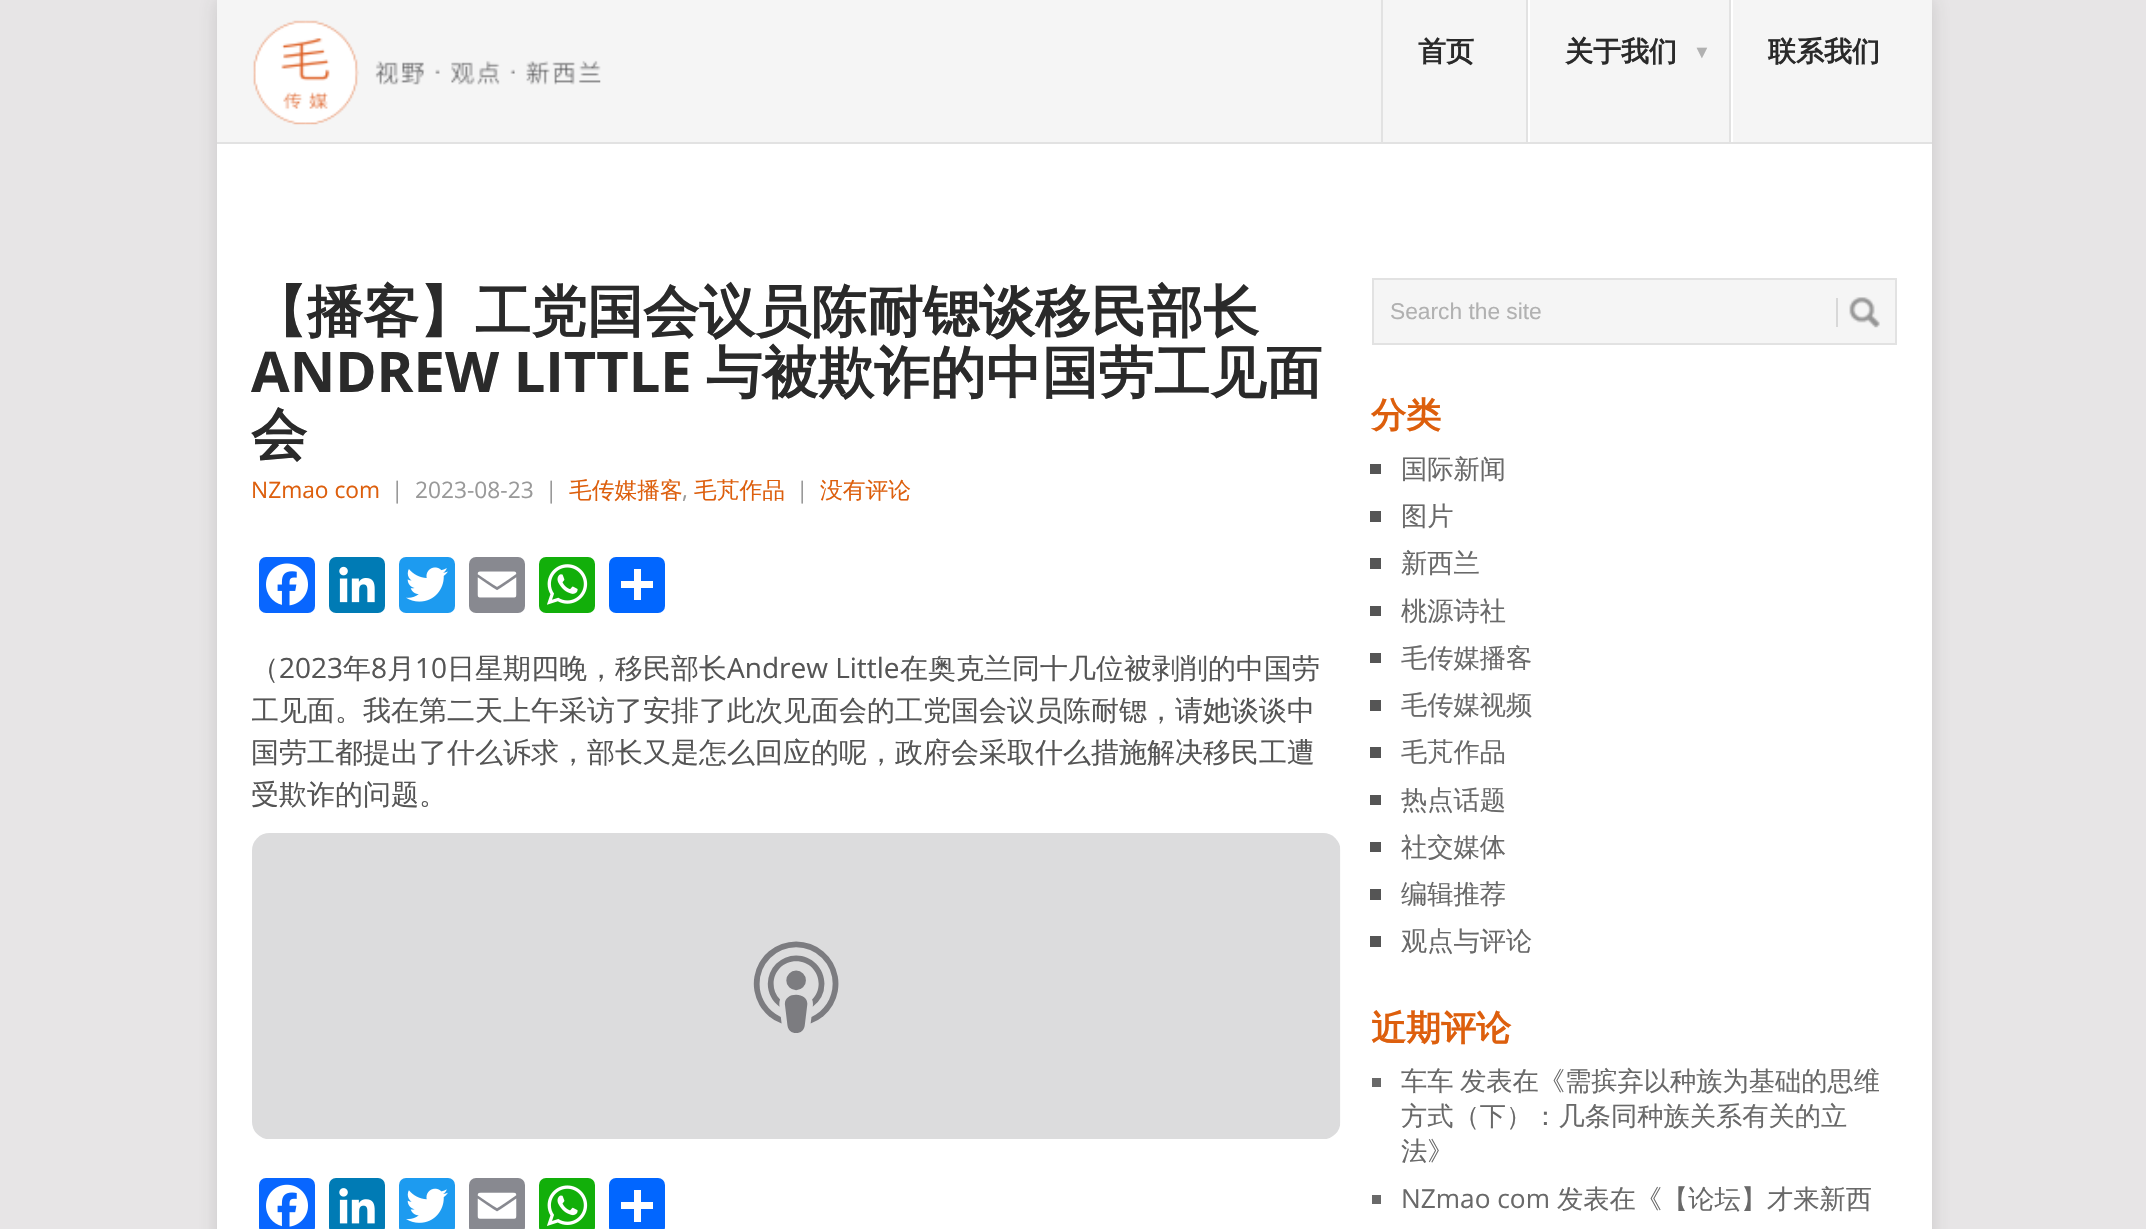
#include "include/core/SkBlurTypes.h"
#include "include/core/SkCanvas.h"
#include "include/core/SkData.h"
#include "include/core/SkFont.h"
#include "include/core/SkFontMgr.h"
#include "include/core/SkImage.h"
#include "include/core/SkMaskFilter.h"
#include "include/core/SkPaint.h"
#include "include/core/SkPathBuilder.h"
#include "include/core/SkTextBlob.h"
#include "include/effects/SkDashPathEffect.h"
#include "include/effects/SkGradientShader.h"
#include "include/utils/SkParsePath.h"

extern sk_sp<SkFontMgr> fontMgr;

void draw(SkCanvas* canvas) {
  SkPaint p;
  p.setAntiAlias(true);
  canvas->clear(SkColorSetRGB(231, 229, 230));
  p.setColor(SkColorSetARGB(43, 50, 50, 50));
  p.setMaskFilter(SkMaskFilter::MakeBlur(kNormal_SkBlurStyle, 9));
  canvas->drawRect(SkRect::MakeLTRB(217, 0, 1932, 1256), p);
  p.setMaskFilter(nullptr);
  p.setColor(SK_ColorWHITE);
  canvas->drawRect(SkRect::MakeLTRB(217, 144, 1932, 1229), p);
  p.setColor(SkColorSetRGB(245, 245, 245));
  canvas->drawRect(SkRect::MakeLTRB(217, 0, 1932, 142), p);
  canvas->drawImageRect(SkImages::DeferredFromEncodedData(SkData::MakeFromFileName("images/1.png")), SkRect::MakeLTRB(253, 20, 601, 125), SkSamplingOptions());
  p.setColor(SkColorSetRGB(226, 226, 226));
  canvas->drawRect(SkRect::MakeLTRB(1526, 0, 1528, 144), p);
  canvas->drawRect(SkRect::MakeLTRB(1381, 0, 1383, 144), p);
  canvas->drawRect(SkRect::MakeLTRB(1729, 0, 1731, 144), p);
  p.setColor(SK_ColorWHITE);
  canvas->drawRect(SkRect::MakeLTRB(1528, 0, 1530, 144), p);
  canvas->drawRect(SkRect::MakeLTRB(1731, 0, 1733, 144), p);
  p.setColor(SkColorSetRGB(226, 226, 226));
  canvas->drawRect(SkRect::MakeLTRB(217, 142, 1932, 144), p);
  p.setColor(SkColorSetRGB(8, 102, 255));
  canvas->drawRoundRect(SkRect::MakeLTRB(259, 557, 315, 613), 7, 7, p);
  canvas->drawImageRect(SkImages::DeferredFromEncodedData(SkData::MakeFromFileName("images/2.png")), SkRect::MakeLTRB(266, 563, 308, 606), SkSamplingOptions());
  p.setColor(SkColorSetRGB(0, 123, 181));
  canvas->drawRoundRect(SkRect::MakeLTRB(329, 557, 385, 613), 7, 7, p);
  canvas->drawImageRect(SkImages::DeferredFromEncodedData(SkData::MakeFromFileName("images/3.png")), SkRect::MakeLTRB(339, 566, 375, 603), SkSamplingOptions());
  p.setColor(SkColorSetRGB(29, 155, 240));
  canvas->drawRoundRect(SkRect::MakeLTRB(399, 557, 455, 613), 7, 7, p);
  canvas->drawImageRect(SkImages::DeferredFromEncodedData(SkData::MakeFromFileName("images/4.png")), SkRect::MakeLTRB(406, 567, 448, 602), SkSamplingOptions());
  p.setColor(SkColorSetRGB(136, 137, 144));
  canvas->drawRoundRect(SkRect::MakeLTRB(469, 557, 525, 613), 7, 7, p);
  canvas->drawImageRect(SkImages::DeferredFromEncodedData(SkData::MakeFromFileName("images/5.png")), SkRect::MakeLTRB(477, 571, 517, 598), SkSamplingOptions());
  p.setColor(SkColorSetRGB(18, 175, 10));
  canvas->drawRoundRect(SkRect::MakeLTRB(539, 557, 595, 613), 7, 7, p);
  canvas->drawImageRect(SkImages::DeferredFromEncodedData(SkData::MakeFromFileName("images/6.png")), SkRect::MakeLTRB(547, 564, 588, 605), SkSamplingOptions());
  p.setColor(SkColorSetRGB(1, 102, 255));
  canvas->drawRoundRect(SkRect::MakeLTRB(609, 557, 665, 613), 7, 7, p);
  p.setColor(SK_ColorWHITE);
  canvas->drawRect(SkRect::MakeLTRB(634, 569, 641, 600), p);
  canvas->drawRect(SkRect::MakeLTRB(621, 581, 653, 588), p);
  canvas->drawImageRect(SkImages::DeferredFromEncodedData(SkData::MakeFromFileName("images/7.png")), SkRect::MakeLTRB(252, 833, 1341, 1139), SkSamplingOptions());
  p.setColor(SkColorSetRGB(8, 102, 255));
  canvas->drawRoundRect(SkRect::MakeLTRB(259, 1178, 315, 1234), 7, 7, p);
  canvas->drawImageRect(SkImages::DeferredFromEncodedData(SkData::MakeFromFileName("images/8.png")), SkRect::MakeLTRB(266, 1184, 308, 1227), SkSamplingOptions());
  p.setColor(SkColorSetRGB(0, 123, 181));
  canvas->drawRoundRect(SkRect::MakeLTRB(329, 1178, 385, 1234), 7, 7, p);
  canvas->drawImageRect(SkImages::DeferredFromEncodedData(SkData::MakeFromFileName("images/9.png")), SkRect::MakeLTRB(339, 1188, 375, 1224), SkSamplingOptions());
  p.setColor(SkColorSetRGB(29, 155, 240));
  canvas->drawRoundRect(SkRect::MakeLTRB(399, 1178, 455, 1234), 7, 7, p);
  canvas->drawImageRect(SkImages::DeferredFromEncodedData(SkData::MakeFromFileName("images/10.png")), SkRect::MakeLTRB(406, 1188, 448, 1223), SkSamplingOptions());
  p.setColor(SkColorSetRGB(136, 137, 144));
  canvas->drawRoundRect(SkRect::MakeLTRB(469, 1178, 525, 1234), 7, 7, p);
  canvas->drawImageRect(SkImages::DeferredFromEncodedData(SkData::MakeFromFileName("images/11.png")), SkRect::MakeLTRB(477, 1192, 517, 1219), SkSamplingOptions());
  p.setColor(SkColorSetRGB(18, 175, 10));
  canvas->drawRoundRect(SkRect::MakeLTRB(539, 1178, 595, 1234), 7, 7, p);
  canvas->drawImageRect(SkImages::DeferredFromEncodedData(SkData::MakeFromFileName("images/12.png")), SkRect::MakeLTRB(547, 1185, 588, 1226), SkSamplingOptions());
  p.setColor(SkColorSetRGB(1, 102, 255));
  canvas->drawRoundRect(SkRect::MakeLTRB(609, 1178, 665, 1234), 7, 7, p);
  p.setColor(SK_ColorWHITE);
  canvas->drawRect(SkRect::MakeLTRB(634, 1190, 641, 1222), p);
  canvas->drawRect(SkRect::MakeLTRB(621, 1202, 653, 1209), p);
  p.setColor(SkColorSetRGB(245, 245, 245));
  canvas->drawRect(SkRect::MakeLTRB(1373, 279, 1896, 344), p);
  p.setStyle(SkPaint::kStroke_Style);
  p.setStrokeWidth(2);
  p.setColor(SkColorSetRGB(226, 226, 226));
  canvas->drawRect(SkRect::MakeLTRB(1373, 279, 1896, 344), p);
  canvas->drawImageRect(SkImages::DeferredFromEncodedData(SkData::MakeFromFileName("images/13.png")), SkRect::MakeLTRB(1849, 297, 1880, 328), SkSamplingOptions());
  p.setStyle(SkPaint::kFill_Style);
  p.setColor(SkColorSetRGB(216, 216, 216));
  canvas->drawRect(SkRect::MakeLTRB(1836, 298, 1838, 327), p);
  p.setColor(SkColorSetRGB(85, 85, 85));
  canvas->drawRect(SkRect::MakeLTRB(1370, 464, 1381, 474), p);
  canvas->drawRect(SkRect::MakeLTRB(1370, 511, 1381, 522), p);
  canvas->drawRect(SkRect::MakeLTRB(1370, 558, 1381, 569), p);
  canvas->drawRect(SkRect::MakeLTRB(1370, 606, 1381, 616), p);
  canvas->drawRect(SkRect::MakeLTRB(1370, 653, 1381, 663), p);
  canvas->drawRect(SkRect::MakeLTRB(1370, 700, 1381, 711), p);
  canvas->drawRect(SkRect::MakeLTRB(1370, 747, 1381, 758), p);
  canvas->drawRect(SkRect::MakeLTRB(1370, 795, 1381, 805), p);
  canvas->drawRect(SkRect::MakeLTRB(1370, 842, 1381, 852), p);
  canvas->drawRect(SkRect::MakeLTRB(1370, 889, 1381, 900), p);
  canvas->drawRect(SkRect::MakeLTRB(1370, 936, 1381, 947), p);
  p.setColor(SkColorSetRGB(105, 105, 105));
  canvas->drawRect(SkRect::MakeLTRB(1372, 1078, 1381, 1087), p);
  canvas->drawRect(SkRect::MakeLTRB(1372, 1195, 1381, 1204), p);
  SkFont font1(fontMgr->matchFamilyStyle("WenQuanYi Zen Hei", SkFontStyle::Bold()), 28);
  font1.setSubpixel(true);
  p.setColor(SkColorSetRGB(42, 42, 42));
  canvas->drawString("首页", 1418, 61, font1, p);
  canvas->drawString("关于我们", 1565, 61, font1, p);
  SkFont font2(fontMgr->matchFamilyStyle("Liberation Sans", SkFontStyle::Bold()), 18);
  font2.setSubpixel(true);
  p.setColor(SkColorSetRGB(177, 177, 177));
  canvas->drawString("▼", 1693, 58, font2, p);
  p.setColor(SkColorSetRGB(42, 42, 42));
  canvas->drawString("联系我们", 1768, 61, font1, p);
  SkFont font3(fontMgr->matchFamilyStyle("WenQuanYi Zen Hei", SkFontStyle::Bold()), 56);
  font3.setSubpixel(true);
  canvas->drawString("【播客】工党国会议员陈耐锶谈移民部长", 251, 331, font3, p);
  SkFont font4(fontMgr->matchFamilyStyle("Open Sans", SkFontStyle::Bold()), 56);
  font4.setSubpixel(true);
  canvas->drawString("ANDREW LITTLE", 251, 392, font4, p);
  canvas->drawString("与被欺诈的中国劳工见面", 706, 392, font3, p);
  canvas->drawString("会", 251, 454, font3, p);
  SkFont font5(fontMgr->matchFamilyStyle("Open Sans", SkFontStyle::Normal()), 22.75f);
  font5.setSubpixel(true);
  p.setColor(SkColorSetRGB(221, 95, 13));
  canvas->drawString("NZmao com", 251, 498, font5, p);
  p.setColor(SkColorSetRGB(153, 153, 153));
  canvas->drawString("|", 391, 498, font5, p);
  canvas->drawString("2023-08-23", 415, 498, font5, p);
  canvas->drawString("|", 545, 498, font5, p);
  SkFont font6(fontMgr->matchFamilyStyle("WenQuanYi Zen Hei", SkFontStyle(500, SkFontStyle::kNormal_Width, SkFontStyle::kUpright_Slant)), 22.75f);
  font6.setSubpixel(true);
  p.setColor(SkColorSetRGB(221, 95, 13));
  canvas->drawString("毛传媒播客", 569, 498, font6, p);
  p.setColor(SkColorSetRGB(153, 153, 153));
  canvas->drawString(",", 682, 498, font5, p);
  p.setColor(SkColorSetRGB(221, 95, 13));
  canvas->drawString("毛芃作品", 694, 498, font6, p);
  p.setColor(SkColorSetRGB(153, 153, 153));
  canvas->drawString("|", 796, 498, font5, p);
  p.setColor(SkColorSetRGB(221, 95, 13));
  canvas->drawString("没有评论", 820, 498, font6, p);
  SkFont font7(fontMgr->matchFamilyStyle("WenQuanYi Zen Hei", SkFontStyle(500, SkFontStyle::kNormal_Width, SkFontStyle::kUpright_Slant)), 28);
  font7.setSubpixel(true);
  p.setColor(SkColorSetRGB(85, 85, 85));
  canvas->drawString("（", 251, 678, font7, p);
  SkFont font8(fontMgr->matchFamilyStyle("Open Sans", SkFontStyle::Normal()), 28);
  font8.setSubpixel(true);
  canvas->drawString("2023", 279, 678, font8, p);
  canvas->drawString("年", 343, 678, font7, p);
  canvas->drawString("8", 371, 678, font8, p);
  canvas->drawString("月", 387, 678, font7, p);
  canvas->drawString("10", 415, 678, font8, p);
  canvas->drawString("日星期四晚，移民部长", 447, 678, font7, p);
  canvas->drawString("Andrew Little", 727, 678, font8, p);
  canvas->drawString("在奥克兰同十几位被剥削的中国劳", 900, 678, font7, p);
  canvas->save();
  canvas->clipRect(SkRect::MakeLTRB(252, 529, 1341, 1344));
  canvas->drawString("工见面。我在第二天上午采访了安排了此次见面会的工党国会议员陈耐锶，请她谈谈中", 251, 720, font7, p);
  canvas->restore();
  canvas->drawString("国劳工都提出了什么诉求，部长又是怎么回应的呢，政府会采取什么措施解决移民工遭", 251, 762, font7, p);
  canvas->drawString("受欺诈的问题。", 251, 804, font7, p);
  SkFont font9(fontMgr->matchFamilyStyle("Liberation Sans", SkFontStyle::Normal()), 22.75f);
  font9.setSubpixel(true);
  p.setColor(SkColorSetRGB(177, 177, 177));
  canvas->drawString("Search the site", 1390, 319, font9, p);
  SkFont font10(fontMgr->matchFamilyStyle("WenQuanYi Zen Hei", SkFontStyle::Bold()), 35);
  font10.setSubpixel(true);
  p.setColor(SkColorSetRGB(221, 95, 13));
  canvas->drawString("分类", 1371, 427, font10, p);
  SkFont font11(fontMgr->matchFamilyStyle("WenQuanYi Zen Hei", SkFontStyle(500, SkFontStyle::kNormal_Width, SkFontStyle::kUpright_Slant)), 26.25f);
  font11.setSubpixel(true);
  p.setColor(SkColorSetRGB(105, 105, 105));
  canvas->drawString("国际新闻", 1401, 478, font11, p);
  canvas->drawString("图片", 1401, 525, font11, p);
  canvas->drawString("新西兰", 1401, 572, font11, p);
  canvas->drawString("桃源诗社", 1401, 620, font11, p);
  canvas->drawString("毛传媒播客", 1401, 667, font11, p);
  canvas->drawString("毛传媒视频", 1401, 714, font11, p);
  canvas->drawString("毛芃作品", 1401, 761, font11, p);
  canvas->drawString("热点话题", 1401, 809, font11, p);
  canvas->drawString("社交媒体", 1401, 856, font11, p);
  canvas->drawString("编辑推荐", 1401, 903, font11, p);
  canvas->drawString("观点与评论", 1401, 950, font11, p);
  p.setColor(SkColorSetRGB(221, 95, 13));
  canvas->drawString("近期评论", 1371, 1040, font10, p);
  p.setColor(SkColorSetRGB(105, 105, 105));
  canvas->drawString("车车", 1401, 1090, font11, p);
  canvas->drawString("发表在《需摈弃以种族为基础的思维", 1460, 1090, font11, p);
  canvas->drawString("方式（下）：几条同种族关系有关的立", 1401, 1125, font11, p);
  canvas->drawString("法》", 1401, 1160, font11, p);
  SkFont font12(fontMgr->matchFamilyStyle("Open Sans", SkFontStyle::Normal()), 26.25f);
  font12.setSubpixel(true);
  canvas->drawString("NZmao com", 1401, 1208, font12, p);
  canvas->drawString("发表在《【论坛】才来新西", 1557, 1208, font11, p);
}
